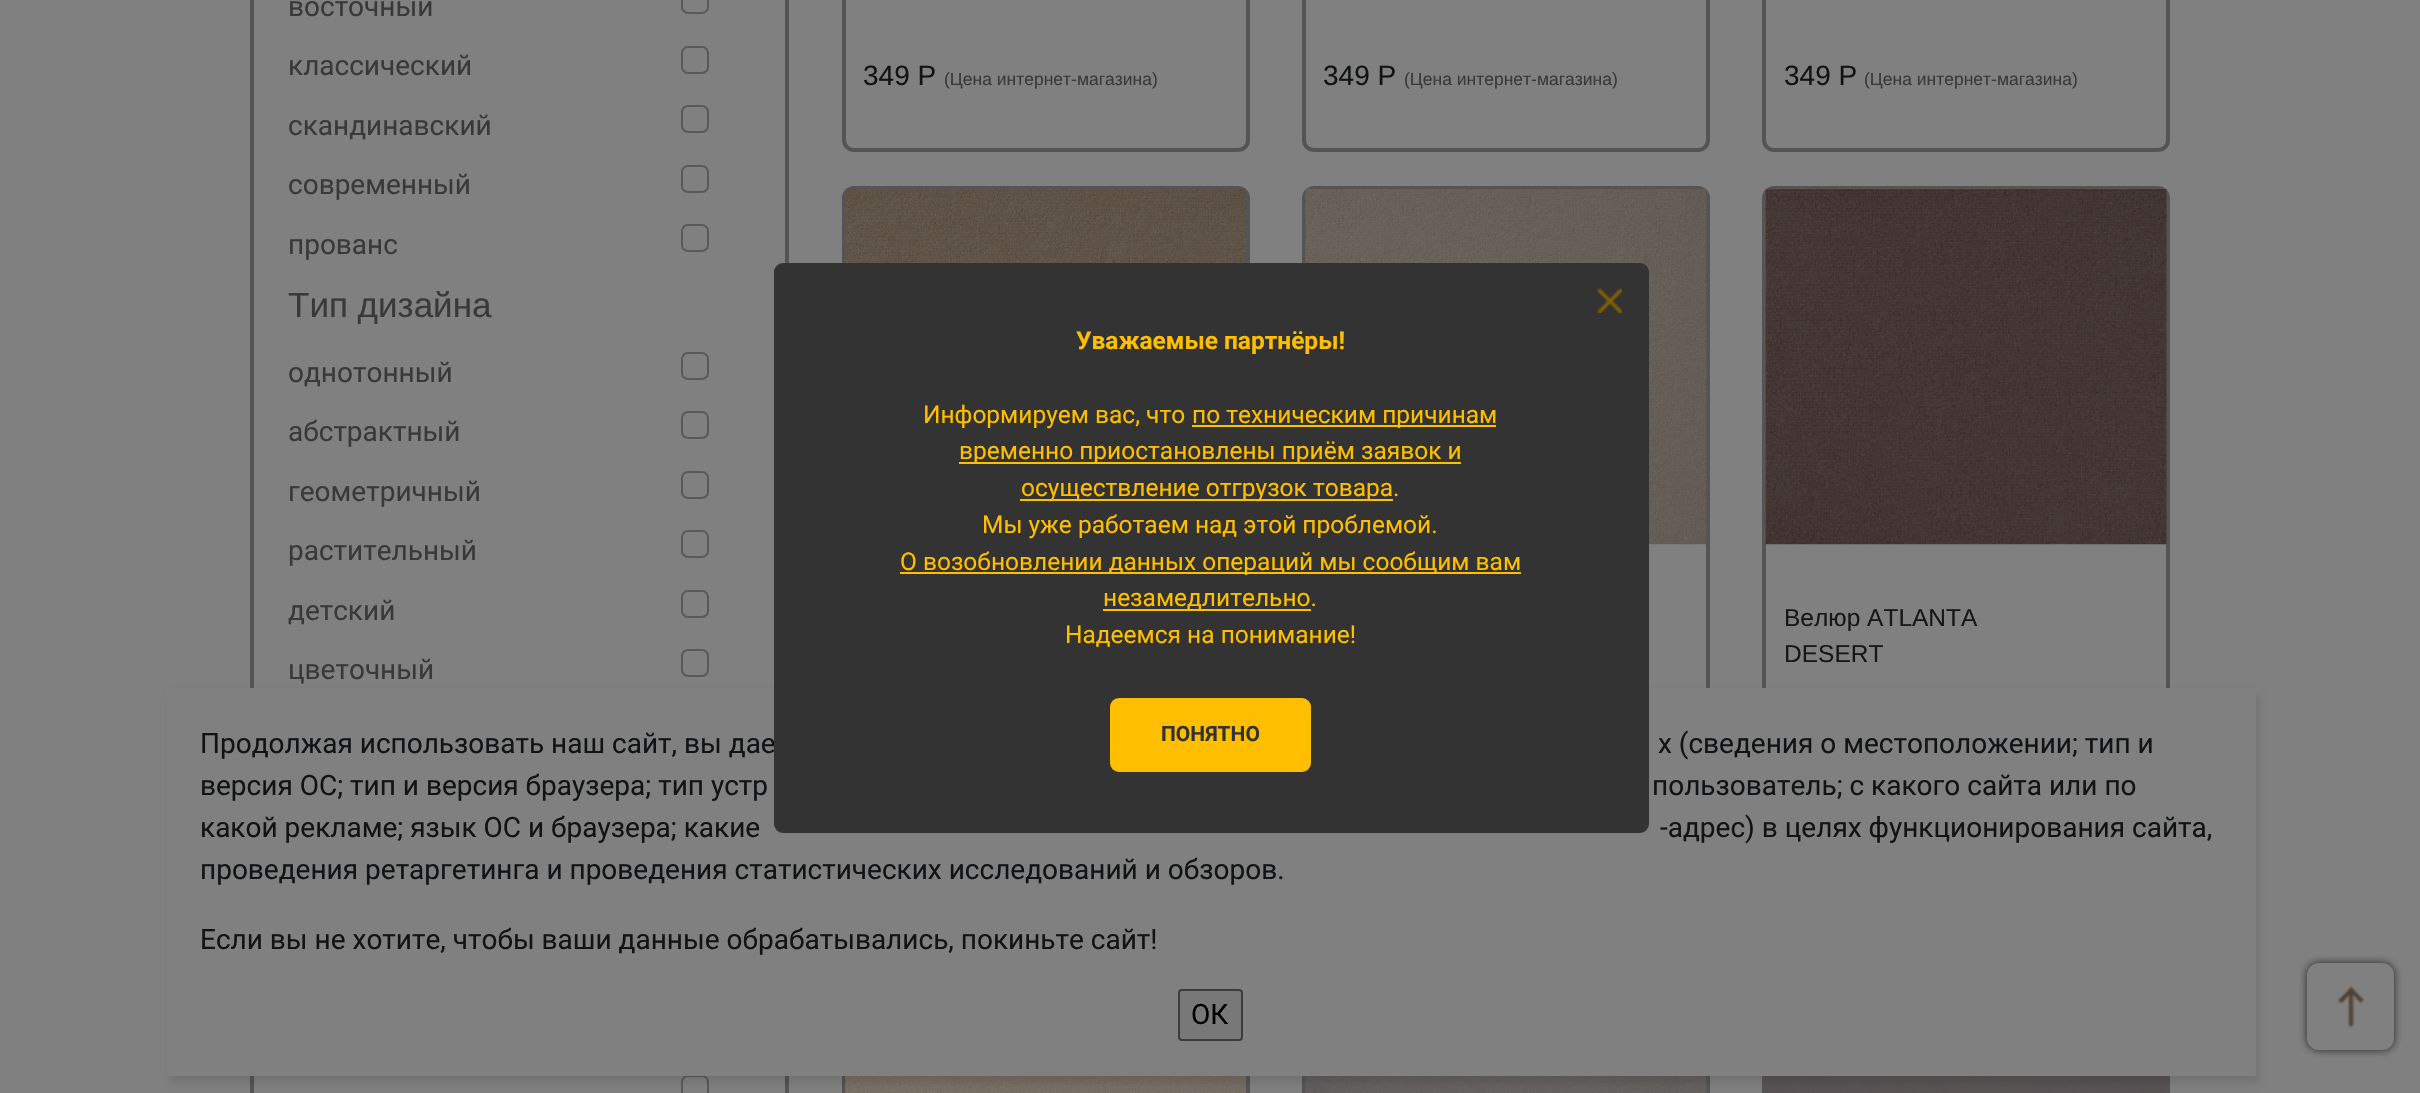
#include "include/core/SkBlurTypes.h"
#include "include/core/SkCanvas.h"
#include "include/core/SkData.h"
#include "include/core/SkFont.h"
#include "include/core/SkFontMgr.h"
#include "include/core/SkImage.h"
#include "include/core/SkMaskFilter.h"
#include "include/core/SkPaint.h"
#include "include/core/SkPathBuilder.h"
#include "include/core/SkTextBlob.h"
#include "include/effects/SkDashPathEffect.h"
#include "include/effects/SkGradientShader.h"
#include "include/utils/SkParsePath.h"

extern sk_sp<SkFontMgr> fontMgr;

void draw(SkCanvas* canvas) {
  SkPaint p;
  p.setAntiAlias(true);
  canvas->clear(SkColorSetRGB(128, 128, 128));
  p.setStyle(SkPaint::kStroke_Style);
  p.setStrokeWidth(4);
  p.setColor(SkColorSetRGB(84, 84, 84));
  canvas->drawRect(SkRect::MakeLTRB(252, -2, 787, 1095), p);
  p.setStrokeWidth(2);
  p.setColor(SkColorSetRGB(89, 89, 89));
  canvas->drawRoundRect(SkRect::MakeLTRB(682, -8, 708, 13), 6, 6, p);
  canvas->drawRoundRect(SkRect::MakeLTRB(682, 47, 708, 73), 6, 6, p);
  canvas->drawRoundRect(SkRect::MakeLTRB(682, 106, 708, 132), 6, 6, p);
  canvas->drawRoundRect(SkRect::MakeLTRB(682, 166, 708, 192), 6, 6, p);
  canvas->drawRoundRect(SkRect::MakeLTRB(682, 225, 708, 251), 6, 6, p);
  canvas->drawRoundRect(SkRect::MakeLTRB(682, 353, 708, 379), 6, 6, p);
  canvas->drawRoundRect(SkRect::MakeLTRB(682, 412, 708, 438), 6, 6, p);
  canvas->drawRoundRect(SkRect::MakeLTRB(682, 472, 708, 498), 6, 6, p);
  canvas->drawRoundRect(SkRect::MakeLTRB(682, 531, 708, 557), 6, 6, p);
  canvas->drawRoundRect(SkRect::MakeLTRB(682, 591, 708, 617), 6, 6, p);
  canvas->drawRoundRect(SkRect::MakeLTRB(682, 650, 708, 676), 6, 6, p);
  canvas->drawRoundRect(SkRect::MakeLTRB(682, 1076, 708, 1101), 6, 6, p);
  p.setStrokeWidth(4);
  p.setColor(SkColorSetRGB(84, 84, 84));
  canvas->drawRoundRect(SkRect::MakeLTRB(844, -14, 1248, 150), 10, 10, p);
  canvas->drawRoundRect(SkRect::MakeLTRB(1304, -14, 1708, 150), 10, 10, p);
  canvas->drawRoundRect(SkRect::MakeLTRB(1764, -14, 2168, 150), 10, 10, p);
  canvas->drawRoundRect(SkRect::MakeLTRB(844, 188, 1248, 812), 10, 10, p);
  canvas->drawImageRect(SkImages::DeferredFromEncodedData(SkData::MakeFromFileName("images/1.png")), SkRect::MakeLTRB(845, 189, 1246, 263), SkSamplingOptions());
  canvas->drawRoundRect(SkRect::MakeLTRB(1304, 188, 1708, 812), 10, 10, p);
  canvas->drawImageRect(SkImages::DeferredFromEncodedData(SkData::MakeFromFileName("images/2.png")), SkRect::MakeLTRB(1305, 189, 1707, 545), SkSamplingOptions());
  canvas->drawRoundRect(SkRect::MakeLTRB(1764, 188, 2168, 812), 10, 10, p);
  canvas->drawImageRect(SkImages::DeferredFromEncodedData(SkData::MakeFromFileName("images/3.png")), SkRect::MakeLTRB(1765, 189, 2167, 545), SkSamplingOptions());
  canvas->drawRect(SkRect::MakeLTRB(844, 847, 1248, 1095), p);
  canvas->drawImageRect(SkImages::DeferredFromEncodedData(SkData::MakeFromFileName("images/4.png")), SkRect::MakeLTRB(845, 1076, 1246, 1093), SkSamplingOptions());
  canvas->drawRect(SkRect::MakeLTRB(1304, 847, 1708, 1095), p);
  canvas->drawImageRect(SkImages::DeferredFromEncodedData(SkData::MakeFromFileName("images/5.png")), SkRect::MakeLTRB(1305, 1076, 1707, 1093), SkSamplingOptions());
  canvas->drawRect(SkRect::MakeLTRB(1764, 847, 2168, 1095), p);
  canvas->drawImageRect(SkImages::DeferredFromEncodedData(SkData::MakeFromFileName("images/6.png")), SkRect::MakeLTRB(1766, 1076, 2167, 1093), SkSamplingOptions());
  p.setStyle(SkPaint::kFill_Style);
  p.setColor(SkColorSetARGB(26, 1, 1, 2));
  p.setMaskFilter(SkMaskFilter::MakeBlur(kNormal_SkBlurStyle, 3.5f));
  canvas->drawRect(SkRect::MakeLTRB(170, 695, 2259, 1083), p);
  p.setMaskFilter(nullptr);
  p.setColor(SkColorSetRGB(128, 128, 128));
  canvas->drawRect(SkRect::MakeLTRB(167, 688, 2256, 1076), p);
  p.setColor(SkColorSetRGB(120, 120, 120));
  canvas->drawRoundRect(SkRect::MakeLTRB(1179, 990, 1242, 1040), 3, 3, p);
  p.setStyle(SkPaint::kStroke_Style);
  p.setStrokeWidth(2);
  p.setColor(SkColorSetRGB(59, 59, 59));
  canvas->drawRoundRect(SkRect::MakeLTRB(1179, 990, 1242, 1040), 3, 3, p);
  p.setStyle(SkPaint::kFill_Style);
  p.setColor(SkColorSetARGB(224, 25, 25, 25));
  p.setMaskFilter(SkMaskFilter::MakeBlur(kNormal_SkBlurStyle, 4.5f));
  canvas->drawRoundRect(SkRect::MakeLTRB(2307, 963, 2394, 1050), 12, 12, p);
  p.setMaskFilter(nullptr);
  p.setColor(SkColorSetRGB(128, 128, 128));
  canvas->drawRoundRect(SkRect::MakeLTRB(2307, 963, 2394, 1050), 12, 12, p);
  canvas->drawImageRect(SkImages::DeferredFromEncodedData(SkData::MakeFromFileName("images/8.png")), SkRect::MakeLTRB(2337, 986, 2365, 1028), SkSamplingOptions());
  SkFont font1(fontMgr->matchFamilyStyle("Roboto", SkFontStyle::Normal()), 28);
  font1.setSubpixel(true);
  p.setColor(SkColorSetRGB(57, 57, 57));
  canvas->drawString("восточный", 288, 16, font1, p);
  canvas->drawString("классический", 288, 75, font1, p);
  canvas->drawString("скандинавский", 288, 135, font1, p);
  canvas->drawString("современный", 288, 194, font1, p);
  canvas->drawString("прованс", 288, 254, font1, p);
  SkFont font2(fontMgr->matchFamilyStyle("Liberation Sans", SkFontStyle::Normal()), 35);
  font2.setSubpixel(true);
  canvas->drawString("Тип дизайна", 288, 317, font2, p);
  canvas->drawString("однотонный", 288, 382, font1, p);
  canvas->drawString("абстрактный", 288, 441, font1, p);
  canvas->drawString("геометричный", 288, 501, font1, p);
  canvas->drawString("растительный", 288, 560, font1, p);
  canvas->drawString("детский", 288, 620, font1, p);
  canvas->drawString("цветочный", 288, 679, font1, p);
  SkFont font3(fontMgr->matchFamilyStyle("Liberation Sans", SkFontStyle::Normal()), 28);
  font3.setSubpixel(true);
  p.setColor(SkColorSetRGB(17, 19, 21));
  canvas->drawString("349 Р", 863, 85, font3, p);
  SkFont font4(fontMgr->matchFamilyStyle("Liberation Sans", SkFontStyle::Normal()), 17.5f);
  font4.setSubpixel(true);
  p.setColor(SkColorSetRGB(57, 57, 57));
  canvas->drawString("(Цена интернет-магазина)", 944, 85, font4, p);
  p.setColor(SkColorSetRGB(17, 19, 21));
  canvas->drawString("349 Р", 1323, 85, font3, p);
  p.setColor(SkColorSetRGB(57, 57, 57));
  canvas->drawString("(Цена интернет-магазина)", 1404, 85, font4, p);
  p.setColor(SkColorSetRGB(17, 19, 21));
  canvas->drawString("349 Р", 1784, 85, font3, p);
  p.setColor(SkColorSetRGB(57, 57, 57));
  canvas->drawString("(Цена интернет-магазина)", 1864, 85, font4, p);
  SkFont font5(fontMgr->matchFamilyStyle("Liberation Sans", SkFontStyle::Normal()), 24.5f);
  font5.setSubpixel(true);
  p.setColor(SkColorSetRGB(23, 23, 23));
  canvas->drawString("Велюр ATLANTA", 1784, 626, font5, p);
  canvas->drawString("DESERT", 1784, 662, font5, p);
  p.setColor(SkColorSetRGB(17, 19, 21));
  canvas->drawString("Продолжая использовать наш сайт, вы дае", 200, 753, font1, p);
  p.setColor(SkColorSetRGB(51, 51, 51));
  canvas->drawRoundRect(SkRect::MakeLTRB(774, 263, 1649, 833), 9, 9, p);
  canvas->drawImageRect(SkImages::DeferredFromEncodedData(SkData::MakeFromFileName("images/7.png")), SkRect::MakeLTRB(1597, 288, 1622, 313), SkSamplingOptions());
  p.setColor(SkColorSetRGB(255, 191, 0));
  canvas->drawRoundRect(SkRect::MakeLTRB(1110, 698, 1311, 772), 9, 9, p);
  SkFont font6(fontMgr->matchFamilyStyle("Roboto", SkFontStyle::Bold()), 21);
  font6.setSubpixel(true);
  p.setColor(SkColorSetRGB(51, 51, 51));
  canvas->drawString("ПОНЯТНО", 1161, 741, font6, p);
  SkFont font7(fontMgr->matchFamilyStyle("Roboto", SkFontStyle::Normal()), 24.5f);
  font7.setSubpixel(true);
  p.setColor(SkColorSetRGB(255, 191, 0));
  canvas->drawString("Надеемся на понимание!", 1065, 643, font7, p);
  canvas->drawRect(SkRect::MakeLTRB(1103, 609, 1311, 611), p);
  canvas->drawString("незамедлительно.", 1103, 606, font7, p);
  canvas->drawRect(SkRect::MakeLTRB(900, 572, 1521, 574), p);
  canvas->drawString("О возобновлении данных операций мы сообщим вам", 900, 570, font7, p);
  canvas->drawString("Мы уже работаем над этой проблемой.", 982, 533, font7, p);
  canvas->drawRect(SkRect::MakeLTRB(1020, 499, 1393, 501), p);
  canvas->drawString("осуществление отгрузок товара.", 1021, 496, font7, p);
  canvas->drawRect(SkRect::MakeLTRB(959, 462, 1461, 464), p);
  canvas->drawString("временно приостановлены приём заявок и", 959, 459, font7, p);
  canvas->drawRect(SkRect::MakeLTRB(1192, 425, 1496, 427), p);
  canvas->drawString("по техническим причинам", 1192, 423, font7, p);
  canvas->drawString("Информируем вас, что", 923, 423, font7, p);
  SkFont font8(fontMgr->matchFamilyStyle("Roboto", SkFontStyle::Bold()), 24.5f);
  font8.setSubpixel(true);
  canvas->drawString("Уважаемые партнёры!", 1076, 349, font8, p);
  p.setColor(SkColorSetRGB(17, 19, 21));
  canvas->drawString("х (сведения о местоположении; тип и", 1658, 753, font1, p);
  canvas->drawString("версия ОС; тип и версия браузера; тип устр", 200, 795, font1, p);
  canvas->drawString("пользователь; с какого сайта или по", 1652, 795, font1, p);
  canvas->drawString("какой рекламе; язык ОС и браузера; какие", 200, 837, font1, p);
  canvas->drawString("-адрес) в целях функционирования сайта,", 1660, 837, font1, p);
  canvas->drawString("проведения ретаргетинга и проведения статистических исследований и обзоров.", 200, 879, font1, p);
  canvas->drawString("Если вы не хотите, чтобы ваши данные обрабатывались, покиньте сайт!", 200, 949, font1, p);
  p.setColor(SK_ColorBLACK);
  canvas->drawString("ОК", 1191, 1024, font1, p);
}
